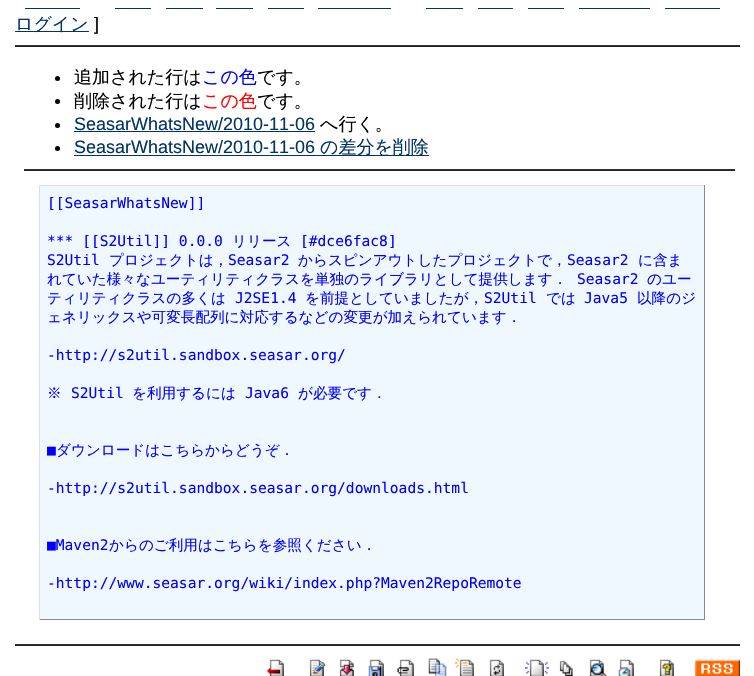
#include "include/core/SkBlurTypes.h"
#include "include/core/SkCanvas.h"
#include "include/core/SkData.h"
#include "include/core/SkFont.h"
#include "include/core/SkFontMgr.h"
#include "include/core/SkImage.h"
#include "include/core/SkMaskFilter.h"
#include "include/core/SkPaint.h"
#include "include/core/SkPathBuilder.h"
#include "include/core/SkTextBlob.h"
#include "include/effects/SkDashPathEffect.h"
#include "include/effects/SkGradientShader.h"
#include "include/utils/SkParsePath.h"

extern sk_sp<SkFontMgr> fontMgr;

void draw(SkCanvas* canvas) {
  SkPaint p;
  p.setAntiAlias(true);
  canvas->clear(SK_ColorWHITE);
  p.setColor(SkColorSetRGB(0, 51, 102));
  canvas->drawRect(SkRect::MakeLTRB(25, 8, 80, 9), p);
  canvas->drawRect(SkRect::MakeLTRB(115, 8, 151, 9), p);
  canvas->drawRect(SkRect::MakeLTRB(166, 8, 203, 9), p);
  canvas->drawRect(SkRect::MakeLTRB(216, 8, 253, 9), p);
  canvas->drawRect(SkRect::MakeLTRB(268, 8, 304, 9), p);
  canvas->drawRect(SkRect::MakeLTRB(318, 8, 391, 9), p);
  canvas->drawRect(SkRect::MakeLTRB(426, 8, 463, 9), p);
  canvas->drawRect(SkRect::MakeLTRB(478, 8, 513, 9), p);
  canvas->drawRect(SkRect::MakeLTRB(528, 8, 564, 9), p);
  canvas->drawRect(SkRect::MakeLTRB(579, 8, 650, 9), p);
  canvas->drawRect(SkRect::MakeLTRB(665, 8, 720, 9), p);
  canvas->drawRect(SkRect::MakeLTRB(15, 31, 89, 32), p);
  p.setColor(SkColorSetRGB(51, 51, 51));
  canvas->drawRect(SkRect::MakeLTRB(15, 45, 740, 46), p);
  p.setColor(SkColorSetRGB(34, 34, 34));
  canvas->drawRect(SkRect::MakeLTRB(15, 46, 740, 47), p);
  p.setColor(SK_ColorBLACK);
  canvas->drawCircle(57.5f, 78.5f, 2.5f, p);
  canvas->drawCircle(57.5f, 101.5f, 2.5f, p);
  canvas->drawCircle(57.5f, 125.5f, 2.5f, p);
  p.setColor(SkColorSetRGB(0, 51, 102));
  canvas->drawRect(SkRect::MakeLTRB(74, 131, 315, 132), p);
  p.setColor(SK_ColorBLACK);
  canvas->drawCircle(57.5f, 148.5f, 2.5f, p);
  p.setColor(SkColorSetRGB(0, 51, 102));
  canvas->drawRect(SkRect::MakeLTRB(74, 155, 429, 156), p);
  p.setColor(SkColorSetRGB(51, 51, 51));
  canvas->drawRect(SkRect::MakeLTRB(24, 169, 735, 170), p);
  p.setColor(SkColorSetRGB(34, 34, 34));
  canvas->drawRect(SkRect::MakeLTRB(24, 170, 735, 171), p);
  p.setColor(SkColorSetRGB(240, 248, 255));
  canvas->drawRect(SkRect::MakeLTRB(40, 186, 704, 619), p);
  p.setColor(SkColorSetRGB(221, 221, 238));
  canvas->drawRect(SkRect::MakeLTRB(39, 185, 705, 186), p);
  p.setColor(SkColorSetRGB(136, 136, 153));
  canvas->drawRect(SkRect::MakeLTRB(704, 185, 705, 620), p);
  canvas->drawRect(SkRect::MakeLTRB(39, 619, 705, 620), p);
  p.setColor(SkColorSetRGB(221, 221, 238));
  canvas->drawRect(SkRect::MakeLTRB(39, 185, 40, 620), p);
  p.setColor(SkColorSetRGB(51, 51, 51));
  canvas->drawRect(SkRect::MakeLTRB(15, 644, 740, 645), p);
  p.setColor(SkColorSetRGB(34, 34, 34));
  canvas->drawRect(SkRect::MakeLTRB(15, 645, 740, 646), p);
  canvas->drawImageRect(SkImages::DeferredFromEncodedData(SkData::MakeFromFileName("images/1.png")), SkRect::MakeLTRB(267, 659, 284, 676), SkSamplingOptions());
  canvas->drawImageRect(SkImages::DeferredFromEncodedData(SkData::MakeFromFileName("images/2.png")), SkRect::MakeLTRB(309, 659, 326, 676), SkSamplingOptions());
  canvas->drawImageRect(SkImages::DeferredFromEncodedData(SkData::MakeFromFileName("images/3.png")), SkRect::MakeLTRB(339, 659, 354, 676), SkSamplingOptions());
  canvas->drawImageRect(SkImages::DeferredFromEncodedData(SkData::MakeFromFileName("images/4.png")), SkRect::MakeLTRB(368, 659, 384, 676), SkSamplingOptions());
  canvas->drawImageRect(SkImages::DeferredFromEncodedData(SkData::MakeFromFileName("images/5.png")), SkRect::MakeLTRB(397, 659, 414, 676), SkSamplingOptions());
  canvas->drawImageRect(SkImages::DeferredFromEncodedData(SkData::MakeFromFileName("images/6.png")), SkRect::MakeLTRB(428, 658, 447, 676), SkSamplingOptions());
  canvas->drawImageRect(SkImages::DeferredFromEncodedData(SkData::MakeFromFileName("images/7.png")), SkRect::MakeLTRB(455, 658, 474, 676), SkSamplingOptions());
  canvas->drawImageRect(SkImages::DeferredFromEncodedData(SkData::MakeFromFileName("images/8.png")), SkRect::MakeLTRB(489, 659, 504, 676), SkSamplingOptions());
  canvas->drawImageRect(SkImages::DeferredFromEncodedData(SkData::MakeFromFileName("images/9.png")), SkRect::MakeLTRB(525, 659, 549, 676), SkSamplingOptions());
  canvas->drawImageRect(SkImages::DeferredFromEncodedData(SkData::MakeFromFileName("images/10.png")), SkRect::MakeLTRB(559, 660, 573, 676), SkSamplingOptions());
  canvas->drawImageRect(SkImages::DeferredFromEncodedData(SkData::MakeFromFileName("images/11.png")), SkRect::MakeLTRB(589, 659, 608, 676), SkSamplingOptions());
  canvas->drawImageRect(SkImages::DeferredFromEncodedData(SkData::MakeFromFileName("images/12.png")), SkRect::MakeLTRB(618, 659, 634, 676), SkSamplingOptions());
  canvas->drawImageRect(SkImages::DeferredFromEncodedData(SkData::MakeFromFileName("images/13.png")), SkRect::MakeLTRB(659, 659, 674, 676), SkSamplingOptions());
  canvas->drawImageRect(SkImages::DeferredFromEncodedData(SkData::MakeFromFileName("images/14.png")), SkRect::MakeLTRB(695, 659, 740, 676), SkSamplingOptions());
  SkFont font1(fontMgr->matchFamilyStyle("WenQuanYi Zen Hei", SkFontStyle(500, SkFontStyle::kNormal_Width, SkFontStyle::kUpright_Slant)), 18);
  font1.setSubpixel(true);
  p.setColor(SkColorSetRGB(0, 51, 102));
  canvas->drawString("ログイン", 15, 30, font1, p);
  SkFont font2(fontMgr->matchFamilyStyle("Liberation Sans", SkFontStyle::Normal()), 18);
  font2.setSubpixel(true);
  p.setColor(SK_ColorBLACK);
  canvas->drawString("]", 94, 30, font2, p);
  canvas->drawString("追加された行は", 74, 83, font1, p);
  p.setColor(SkColorSetRGB(0, 0, 255));
  canvas->drawString("この色", 202, 83, font1, p);
  p.setColor(SK_ColorBLACK);
  canvas->drawString("です。", 257, 83, font1, p);
  canvas->drawString("削除された行は", 74, 107, font1, p);
  p.setColor(SkColorSetRGB(255, 0, 0));
  canvas->drawString("この色", 202, 107, font1, p);
  p.setColor(SK_ColorBLACK);
  canvas->drawString("です。", 257, 107, font1, p);
  p.setColor(SkColorSetRGB(0, 51, 102));
  canvas->drawString("SeasarWhatsNew/2010-11-06", 74, 130, font2, p);
  p.setColor(SK_ColorBLACK);
  canvas->drawString("へ行く。", 320, 130, font1, p);
  p.setColor(SkColorSetRGB(0, 51, 102));
  canvas->drawString("SeasarWhatsNew/2010-11-06", 74, 153, font2, p);
  canvas->drawString("の差分を削除", 320, 153, font1, p);
  SkFont font3(fontMgr->matchFamilyStyle("DejaVu Sans Mono", SkFontStyle::Normal()), 14.6f);
  font3.setSubpixel(true);
  p.setColor(SkColorSetRGB(0, 0, 255));
  canvas->drawString("[[SeasarWhatsNew]]", 47, 208, font3, p);
  canvas->drawString("*** [[S2Util]] 0.0.0", 47, 246, font3, p);
  SkFont font4(fontMgr->matchFamilyStyle("WenQuanYi Zen Hei", SkFontStyle(500, SkFontStyle::kNormal_Width, SkFontStyle::kUpright_Slant)), 14.6f);
  font4.setSubpixel(true);
  canvas->drawString("リリース", 232, 246, font4, p);
  canvas->drawString("[#dce6fac8]", 300, 246, font3, p);
  canvas->drawString("S2Util", 47, 265, font3, p);
  canvas->drawString("プロジェクトは，", 109, 265, font4, p);
  canvas->drawString("Seasar2", 228, 265, font3, p);
  canvas->drawString("からスピンアウトしたプロジェクトで，", 298, 265, font4, p);
  canvas->drawString("Seasar2", 567, 265, font3, p);
  canvas->drawString("に含ま", 638, 265, font4, p);
  canvas->drawString("れていた様々なユーティリティクラスを単独のライブラリとして提供します．", 47, 284, font4, p);
  canvas->drawString("Seasar2", 577, 284, font3, p);
  canvas->drawString("のユー", 647, 284, font4, p);
  canvas->drawString("ティリティクラスの多くは", 47, 303, font4, p);
  canvas->drawString("J2SE1.4", 235, 303, font3, p);
  canvas->drawString("を前提としていましたが，", 305, 303, font4, p);
  canvas->drawString("S2Util", 484, 303, font3, p);
  canvas->drawString("では", 546, 303, font4, p);
  canvas->drawString("Java5", 584, 303, font3, p);
  canvas->drawString("以降のジ", 637, 303, font4, p);
  canvas->drawString("ェネリックスや可変長配列に対応するなどの変更が加えられています．", 47, 322, font4, p);
  canvas->drawString("-http://s2util.sandbox.seasar.org/", 47, 360, font3, p);
  canvas->drawString("※", 47, 398, font4, p);
  canvas->drawString("S2Util", 71, 398, font3, p);
  canvas->drawString("を利用するには", 132, 398, font4, p);
  canvas->drawString("Java6", 245, 398, font3, p);
  canvas->drawString("が必要です．", 298, 398, font4, p);
  canvas->drawString("■", 47, 455, font3, p);
  canvas->drawString("ダウンロードはこちらからどうぞ．", 56, 455, font4, p);
  canvas->drawString("-http://s2util.sandbox.seasar.org/downloads.html", 47, 493, font3, p);
  canvas->drawString("■Maven2", 47, 550, font3, p);
  canvas->drawString("からのご利用はこちらを参照ください．", 109, 550, font4, p);
  canvas->drawString("-http://www.seasar.org/wiki/index.php?Maven2RepoRemote", 47, 588, font3, p);
}
